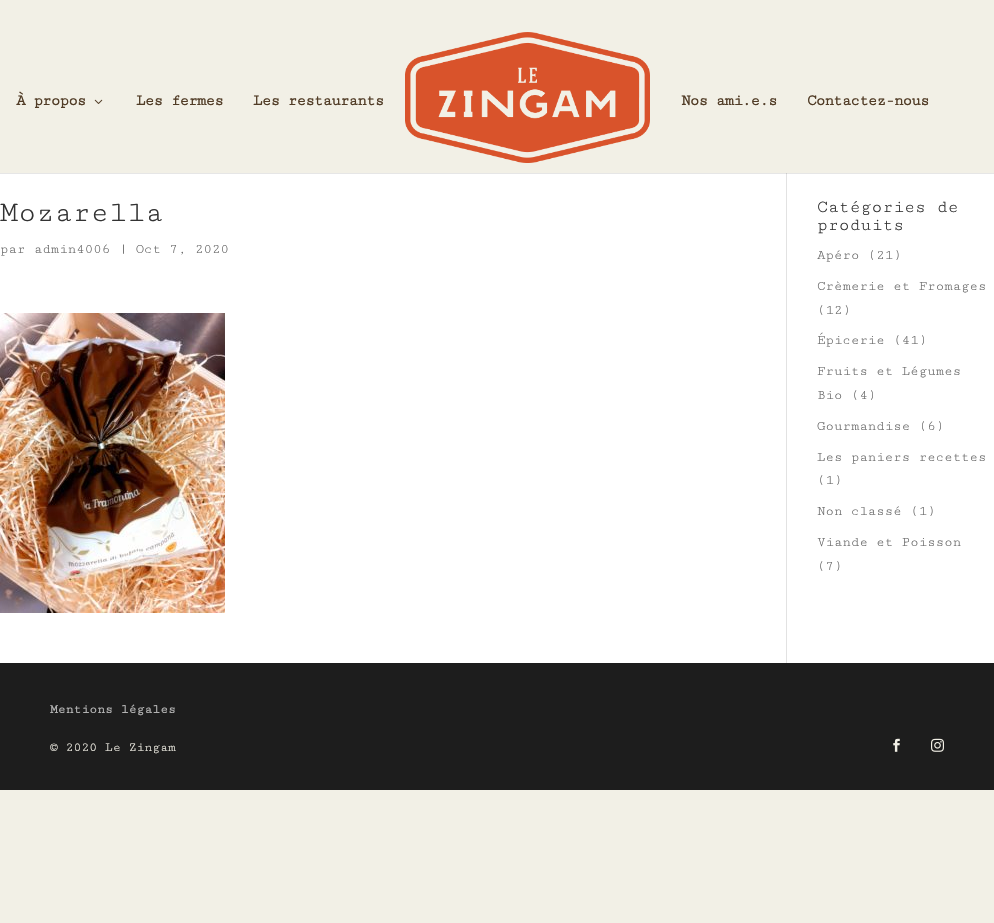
#include "include/core/SkBlurTypes.h"
#include "include/core/SkCanvas.h"
#include "include/core/SkData.h"
#include "include/core/SkFont.h"
#include "include/core/SkFontMgr.h"
#include "include/core/SkImage.h"
#include "include/core/SkMaskFilter.h"
#include "include/core/SkPaint.h"
#include "include/core/SkPathBuilder.h"
#include "include/core/SkTextBlob.h"
#include "include/effects/SkDashPathEffect.h"
#include "include/effects/SkGradientShader.h"
#include "include/utils/SkParsePath.h"

extern sk_sp<SkFontMgr> fontMgr;

void draw(SkCanvas* canvas) {
  SkPaint p;
  p.setAntiAlias(true);
  auto spacedText = [&](const char* s, float x, float y, const SkFont& font, const SkPaint& ink, float letter, float word) {
    std::vector<SkGlyphID> glyphs(font.countText(s, strlen(s), SkTextEncoding::kUTF8));
    std::vector<float> xs(glyphs.size());
    font.textToGlyphs(s, strlen(s), SkTextEncoding::kUTF8, glyphs);
    font.getXPos(glyphs, xs, x);
    float extra = 0;
    for (size_t i = 0; i < glyphs.size(); i++) {
      xs[i] += extra;
      extra += letter + word * (glyphs[i] == font.unicharToGlyph(' '));
    }
    canvas->drawTextBlob(SkTextBlob::MakeFromPosHGlyphs(glyphs, xs, y, font), 0, 0, ink);
  };
  canvas->clear(SkColorSetRGB(242, 240, 230));
  canvas->drawImageRect(SkImages::DeferredFromEncodedData(SkData::MakeFromFileName("images/1.png")), SkRect::MakeLTRB(94, 99, 103, 104), SkSamplingOptions());
  canvas->drawImageRect(SkImages::DeferredFromEncodedData(SkData::MakeFromFileName("images/2.png")), SkRect::MakeLTRB(405, 32, 650, 163), SkSamplingOptions());
  p.setColor(SK_ColorWHITE);
  canvas->drawRect(SkRect::MakeLTRB(0, 174, 994, 663), p);
  p.setColor(SkColorSetRGB(230, 230, 230));
  canvas->drawRect(SkRect::MakeLTRB(0, 173, 994, 174), p);
  p.setColor(SkColorSetRGB(226, 226, 226));
  canvas->drawRect(SkRect::MakeLTRB(786, 174, 787, 663), p);
  p.setColor(SkColorSetRGB(203, 203, 203));
  canvas->drawRect(SkRect::MakeLTRB(786, 173, 787, 174), p);
  canvas->drawImageRect(SkImages::DeferredFromEncodedData(SkData::MakeFromFileName("images/3.png")), SkRect::MakeLTRB(0, 313, 225, 613), SkSamplingOptions());
  p.setColor(SkColorSetRGB(29, 29, 29));
  canvas->drawRect(SkRect::MakeLTRB(0, 663, 994, 790), p);
  canvas->drawImageRect(SkImages::DeferredFromEncodedData(SkData::MakeFromFileName("images/4.png")), SkRect::MakeLTRB(893, 738, 900, 752), SkSamplingOptions());
  canvas->drawImageRect(SkImages::DeferredFromEncodedData(SkData::MakeFromFileName("images/5.png")), SkRect::MakeLTRB(931, 738, 944, 752), SkSamplingOptions());
  SkFont font1(fontMgr->matchFamilyStyle("Cutive Mono", SkFontStyle::Bold()), 16);
  font1.setSubpixel(true);
  p.setColor(SkColorSetRGB(81, 60, 38));
  spacedText("À propos", 16, 105, font1, p, -1, 0);
  spacedText("Les fermes", 136, 105, font1, p, -1, 0);
  spacedText("Les restaurants", 253, 105, font1, p, -1, 0);
  spacedText("Nos ami.e.s", 681, 105, font1, p, -1, 0);
  spacedText("Contactez-nous", 807, 105, font1, p, -1, 0);
  SkFont font2(fontMgr->matchFamilyStyle("Cutive Mono", SkFontStyle::Normal()), 30);
  font2.setSubpixel(true);
  p.setColor(SkColorSetRGB(51, 51, 51));
  canvas->drawString("Mozarella", 0, 221, font2, p);
  SkFont font3(fontMgr->matchFamilyStyle("Cutive Mono", SkFontStyle::Normal()), 14);
  font3.setSubpixel(true);
  p.setColor(SkColorSetRGB(102, 102, 102));
  canvas->drawString("par admin4006 | Oct 7, 2020", 0, 253, font3, p);
  SkFont font4(fontMgr->matchFamilyStyle("Cutive Mono", SkFontStyle::Normal()), 18);
  font4.setSubpixel(true);
  p.setColor(SkColorSetRGB(51, 51, 51));
  canvas->drawString("Catégories de", 817, 212, font4, p);
  canvas->drawString("produits", 817, 230, font4, p);
  p.setColor(SkColorSetRGB(102, 102, 102));
  canvas->drawString("Apéro (21)", 817, 259, font3, p);
  canvas->drawString("Crèmerie et Fromages", 817, 290, font3, p);
  canvas->drawString("(12)", 817, 314, font3, p);
  canvas->drawString("Épicerie (41)", 817, 344, font3, p);
  canvas->drawString("Fruits et Légumes", 817, 375, font3, p);
  canvas->drawString("Bio (4)", 817, 399, font3, p);
  canvas->drawString("Gourmandise (6)", 817, 430, font3, p);
  canvas->drawString("Les paniers recettes", 817, 461, font3, p);
  canvas->drawString("(1)", 817, 484, font3, p);
  canvas->drawString("Non classé (1)", 817, 515, font3, p);
  canvas->drawString("Viande et Poisson", 817, 546, font3, p);
  canvas->drawString("(7)", 817, 570, font3, p);
  SkFont font5(fontMgr->matchFamilyStyle("Cutive Mono", SkFontStyle::Bold()), 13);
  font5.setSubpixel(true);
  p.setColor(SkColorSetRGB(178, 178, 178));
  canvas->drawString("Mentions légales", 50, 713, font5, p);
  SkFont font6(fontMgr->matchFamilyStyle("Cutive Mono", SkFontStyle::Normal()), 13);
  font6.setSubpixel(true);
  p.setColor(SkColorSetRGB(242, 240, 230));
  canvas->drawString("© 2020 Le Zingam", 50, 751, font6, p);
}
